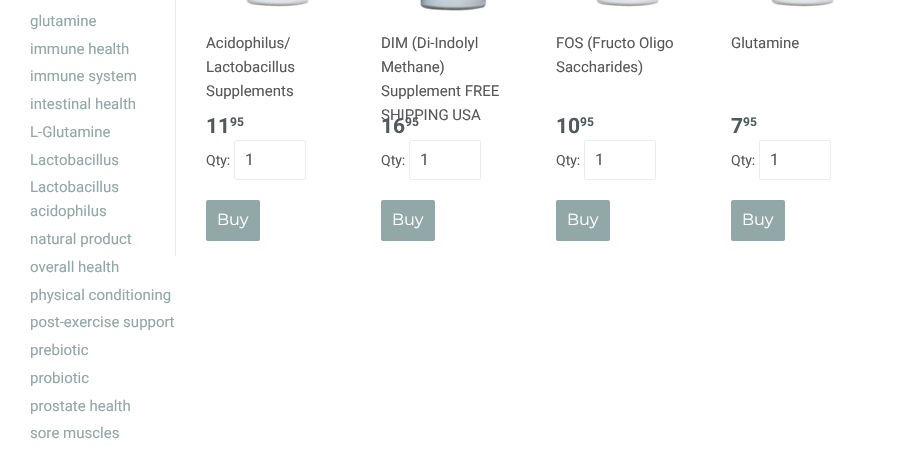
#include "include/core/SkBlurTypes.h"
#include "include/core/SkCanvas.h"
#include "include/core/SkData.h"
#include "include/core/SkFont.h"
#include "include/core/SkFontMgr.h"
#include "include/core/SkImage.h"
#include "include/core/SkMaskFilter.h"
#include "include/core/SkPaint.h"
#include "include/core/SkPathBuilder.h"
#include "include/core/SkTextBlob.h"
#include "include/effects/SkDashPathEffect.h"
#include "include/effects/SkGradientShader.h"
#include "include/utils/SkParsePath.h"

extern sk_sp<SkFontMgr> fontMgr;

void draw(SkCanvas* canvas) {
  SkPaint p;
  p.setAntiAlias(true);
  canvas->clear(SK_ColorWHITE);
  p.setColor(SkColorSetRGB(236, 236, 236));
  canvas->drawRect(SkRect::MakeLTRB(175, 0, 176, 256), p);
  canvas->drawImageRect(SkImages::DeferredFromEncodedData(SkData::MakeFromFileName("images/1.png")), SkRect::MakeLTRB(246, 0, 309, 8), SkSamplingOptions());
  p.setStyle(SkPaint::kStroke_Style);
  p.setStrokeWidth(1);
  canvas->drawRoundRect(SkRect::MakeLTRB(234.5f, 140.5f, 305.5f, 179.5f), 1.5f, 1.5f, p);
  p.setStyle(SkPaint::kFill_Style);
  p.setColor(SkColorSetRGB(145, 167, 168));
  canvas->drawRoundRect(SkRect::MakeLTRB(206, 200, 260, 241), 2, 2, p);
  canvas->drawImageRect(SkImages::DeferredFromEncodedData(SkData::MakeFromFileName("images/2.png")), SkRect::MakeLTRB(418, 0, 487, 11), SkSamplingOptions());
  p.setStyle(SkPaint::kStroke_Style);
  p.setColor(SkColorSetRGB(236, 236, 236));
  canvas->drawRoundRect(SkRect::MakeLTRB(409.5f, 140.5f, 480.5f, 179.5f), 1.5f, 1.5f, p);
  p.setStyle(SkPaint::kFill_Style);
  p.setColor(SkColorSetRGB(145, 167, 168));
  canvas->drawRoundRect(SkRect::MakeLTRB(381, 200, 435, 241), 2, 2, p);
  canvas->drawImageRect(SkImages::DeferredFromEncodedData(SkData::MakeFromFileName("images/3.png")), SkRect::MakeLTRB(596, 0, 659, 8), SkSamplingOptions());
  p.setStyle(SkPaint::kStroke_Style);
  p.setColor(SkColorSetRGB(236, 236, 236));
  canvas->drawRoundRect(SkRect::MakeLTRB(584.5f, 140.5f, 655.5f, 179.5f), 1.5f, 1.5f, p);
  p.setStyle(SkPaint::kFill_Style);
  p.setColor(SkColorSetRGB(145, 167, 168));
  canvas->drawRoundRect(SkRect::MakeLTRB(556, 200, 610, 241), 2, 2, p);
  canvas->drawImageRect(SkImages::DeferredFromEncodedData(SkData::MakeFromFileName("images/4.png")), SkRect::MakeLTRB(771, 0, 834, 8), SkSamplingOptions());
  p.setStyle(SkPaint::kStroke_Style);
  p.setColor(SkColorSetRGB(236, 236, 236));
  canvas->drawRoundRect(SkRect::MakeLTRB(759.5f, 140.5f, 830.5f, 179.5f), 1.5f, 1.5f, p);
  p.setStyle(SkPaint::kFill_Style);
  p.setColor(SkColorSetRGB(145, 167, 168));
  canvas->drawRoundRect(SkRect::MakeLTRB(731, 200, 785, 241), 2, 2, p);
  SkFont font1(fontMgr->matchFamilyStyle("Roboto", SkFontStyle::Normal()), 15);
  font1.setSubpixel(true);
  canvas->drawString("glutamine", 30, 26, font1, p);
  canvas->drawString("immune health", 30, 54, font1, p);
  canvas->drawString("immune system", 30, 81, font1, p);
  canvas->drawString("intestinal health", 30, 109, font1, p);
  canvas->drawString("L-Glutamine", 30, 137, font1, p);
  canvas->drawString("Lactobacillus", 30, 165, font1, p);
  canvas->drawString("Lactobacillus", 30, 192, font1, p);
  canvas->drawString("acidophilus", 30, 216, font1, p);
  canvas->drawString("natural product", 30, 244, font1, p);
  canvas->drawString("overall health", 30, 272, font1, p);
  canvas->drawString("physical conditioning", 30, 300, font1, p);
  canvas->drawString("post-exercise support", 30, 327, font1, p);
  canvas->drawString("prebiotic", 30, 355, font1, p);
  canvas->drawString("probiotic", 30, 383, font1, p);
  canvas->drawString("prostate health", 30, 411, font1, p);
  canvas->drawString("sore muscles", 30, 438, font1, p);
  p.setColor(SkColorSetRGB(88, 88, 88));
  canvas->drawString("Acidophilus/", 206, 48, font1, p);
  canvas->drawString("Lactobacillus", 206, 72, font1, p);
  canvas->drawString("Supplements", 206, 96, font1, p);
  SkFont font2(fontMgr->matchFamilyStyle("Roboto", SkFontStyle::Bold()), 21);
  font2.setSubpixel(true);
  p.setColor(SkColorSetRGB(79, 90, 94));
  canvas->drawString("11", 206, 133, font2, p);
  SkFont font3(fontMgr->matchFamilyStyle("Roboto", SkFontStyle::Bold()), 12);
  font3.setSubpixel(true);
  canvas->drawString("95", 230, 126, font3, p);
  SkFont font4(fontMgr->matchFamilyStyle("Roboto", SkFontStyle::Normal()), 14);
  font4.setSubpixel(true);
  p.setColor(SkColorSetRGB(88, 88, 88));
  canvas->drawString("Qty:", 206, 165, font4, p);
  SkFont font5(fontMgr->matchFamilyStyle("Roboto", SkFontStyle::Normal()), 16);
  font5.setSubpixel(true);
  canvas->drawString("1", 245, 165, font5, p);
  SkFont font6(fontMgr->matchFamilyStyle("Montserrat", SkFontStyle(100, SkFontStyle::kNormal_Width, SkFontStyle::kUpright_Slant)), 16);
  font6.setSubpixel(true);
  p.setColor(SK_ColorWHITE);
  canvas->drawString("Buy", 217, 225, font6, p);
  p.setColor(SkColorSetRGB(88, 88, 88));
  canvas->drawString("DIM (Di-Indolyl", 381, 48, font1, p);
  canvas->drawString("Methane)", 381, 72, font1, p);
  canvas->drawString("Supplement FREE", 381, 96, font1, p);
  canvas->drawString("SHIPPING USA", 381, 120, font1, p);
  p.setColor(SkColorSetRGB(79, 90, 94));
  canvas->drawString("16", 381, 133, font2, p);
  canvas->drawString("95", 405, 126, font3, p);
  p.setColor(SkColorSetRGB(88, 88, 88));
  canvas->drawString("Qty:", 381, 165, font4, p);
  canvas->drawString("1", 420, 165, font5, p);
  p.setColor(SK_ColorWHITE);
  canvas->drawString("Buy", 392, 225, font6, p);
  p.setColor(SkColorSetRGB(88, 88, 88));
  canvas->drawString("FOS (Fructo Oligo", 556, 48, font1, p);
  canvas->drawString("Saccharides)", 556, 72, font1, p);
  p.setColor(SkColorSetRGB(79, 90, 94));
  canvas->drawString("10", 556, 133, font2, p);
  canvas->drawString("95", 580, 126, font3, p);
  p.setColor(SkColorSetRGB(88, 88, 88));
  canvas->drawString("Qty:", 556, 165, font4, p);
  canvas->drawString("1", 595, 165, font5, p);
  p.setColor(SK_ColorWHITE);
  canvas->drawString("Buy", 567, 225, font6, p);
  p.setColor(SkColorSetRGB(88, 88, 88));
  canvas->drawString("Glutamine", 731, 48, font1, p);
  p.setColor(SkColorSetRGB(79, 90, 94));
  canvas->drawString("7", 731, 133, font2, p);
  canvas->drawString("95", 743, 126, font3, p);
  p.setColor(SkColorSetRGB(88, 88, 88));
  canvas->drawString("Qty:", 731, 165, font4, p);
  canvas->drawString("1", 770, 165, font5, p);
  p.setColor(SK_ColorWHITE);
  canvas->drawString("Buy", 742, 225, font6, p);
}
